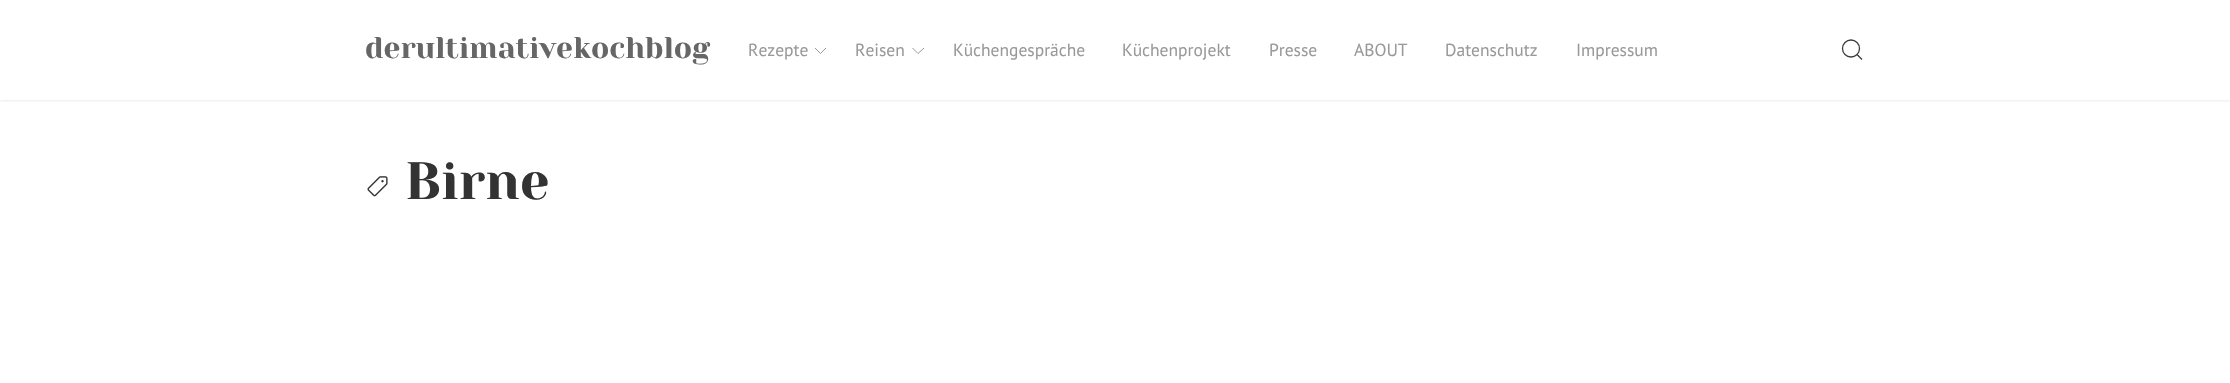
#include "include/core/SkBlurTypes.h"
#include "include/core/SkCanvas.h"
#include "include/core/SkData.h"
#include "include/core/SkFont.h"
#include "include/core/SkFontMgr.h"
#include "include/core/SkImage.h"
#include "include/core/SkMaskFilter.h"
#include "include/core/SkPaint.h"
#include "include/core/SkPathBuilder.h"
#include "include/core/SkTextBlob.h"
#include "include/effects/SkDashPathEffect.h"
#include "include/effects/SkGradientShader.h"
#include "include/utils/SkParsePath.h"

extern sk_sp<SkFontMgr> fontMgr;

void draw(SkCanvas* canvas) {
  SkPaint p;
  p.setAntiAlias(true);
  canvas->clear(SK_ColorWHITE);
  canvas->save();
  canvas->clipRect(SkRect::MakeLTRB(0, 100, 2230, 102));
  p.setColor(SkColorSetARGB(20, 0, 0, 0));
  p.setMaskFilter(SkMaskFilter::MakeBlur(kNormal_SkBlurStyle, 2));
  canvas->drawRect(SkRect::MakeLTRB(0, 1, 2230, 101), p);
  p.setMaskFilter(nullptr);
  canvas->restore();
  p.setStyle(SkPaint::kStroke_Style);
  p.setStrokeWidth(1);
  p.setColor(SkColorSetRGB(153, 153, 153));
  canvas->drawPath(SkPathBuilder().moveTo(826, 48).lineTo(820.5f, 53.5f).lineTo(815, 48).detach(), p);
  canvas->drawPath(SkPathBuilder().moveTo(924, 48).lineTo(918, 53.5f).lineTo(912.5f, 48).detach(), p);
  p.setStrokeWidth(1.3f);
  p.setColor(SkColorSetRGB(60, 60, 60));
  canvas->drawCircle(1851, 48.5f, 8.5f, p);
  canvas->drawPath(SkPathBuilder().moveTo(1857, 54.5f).lineTo(1862, 59.5f).close().detach(), p);
  canvas->drawImageRect(SkImages::DeferredFromEncodedData(SkData::MakeFromFileName("images/1.png")), SkRect::MakeLTRB(367, 176, 388, 197), SkSamplingOptions());
  SkFont font1(fontMgr->matchFamilyStyle("Yeseva One", SkFontStyle::Normal()), 30);
  font1.setSubpixel(true);
  p.setStyle(SkPaint::kFill_Style);
  p.setColor(SkColorSetRGB(102, 102, 102));
  canvas->drawString("derultimativekochblog", 365, 58, font1, p);
  SkFont font2(fontMgr->matchFamilyStyle("PT Sans", SkFontStyle::Normal()), 17.5f);
  font2.setSubpixel(true);
  p.setColor(SkColorSetRGB(153, 153, 153));
  canvas->drawString("Rezepte", 748, 56, font2, p);
  canvas->drawString("Reisen", 855, 56, font2, p);
  canvas->drawString("Küchengespräche", 953, 56, font2, p);
  canvas->drawString("Küchenprojekt", 1122, 56, font2, p);
  canvas->drawString("Presse", 1269, 56, font2, p);
  canvas->drawString("ABOUT", 1354, 56, font2, p);
  canvas->drawString("Datenschutz", 1445, 56, font2, p);
  canvas->drawString("Impressum", 1576, 56, font2, p);
  SkFont font3(fontMgr->matchFamilyStyle("Yeseva One", SkFontStyle::Normal()), 52.5f);
  font3.setSubpixel(true);
  p.setColor(SkColorSetRGB(51, 51, 51));
  canvas->drawString("Birne", 405, 199, font3, p);
}
